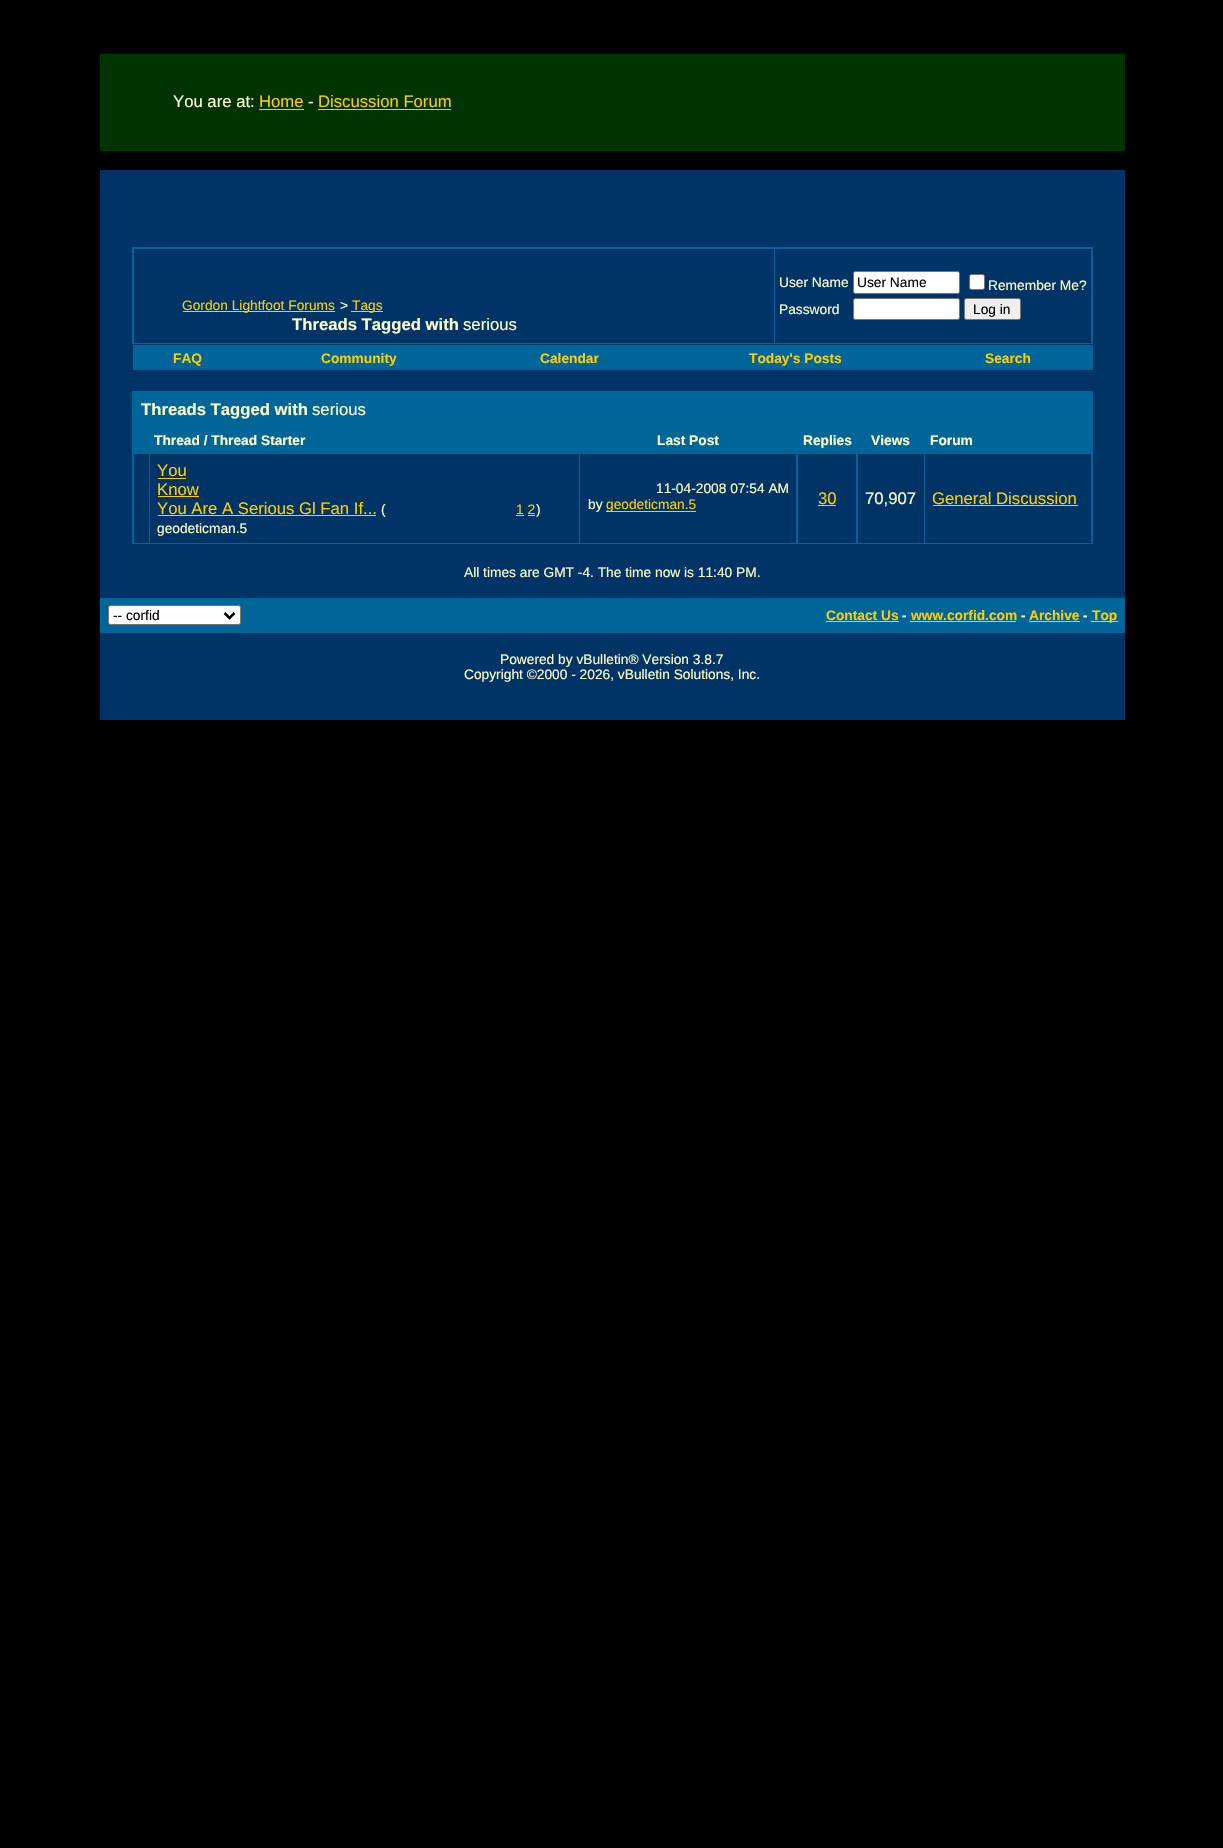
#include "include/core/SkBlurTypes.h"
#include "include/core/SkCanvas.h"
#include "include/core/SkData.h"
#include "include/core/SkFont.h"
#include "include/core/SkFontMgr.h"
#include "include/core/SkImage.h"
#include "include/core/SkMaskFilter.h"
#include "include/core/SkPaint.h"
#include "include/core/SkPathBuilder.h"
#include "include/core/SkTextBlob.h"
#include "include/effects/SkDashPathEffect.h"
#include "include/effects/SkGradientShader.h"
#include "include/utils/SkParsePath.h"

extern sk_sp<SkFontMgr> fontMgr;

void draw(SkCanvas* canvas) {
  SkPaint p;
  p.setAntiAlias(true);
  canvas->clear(SK_ColorBLACK);
  p.setColor(SkColorSetRGB(0, 51, 0));
  canvas->drawRect(SkRect::MakeLTRB(100, 54, 1125, 151), p);
  p.setColor(SkColorSetRGB(255, 204, 0));
  canvas->drawRect(SkRect::MakeLTRB(259, 109, 304, 110), p);
  canvas->drawRect(SkRect::MakeLTRB(318, 109, 451, 110), p);
  p.setColor(SkColorSetRGB(0, 51, 102));
  canvas->drawRect(SkRect::MakeLTRB(100, 170, 1125, 681), p);
  p.setColor(SkColorSetRGB(0, 102, 153));
  canvas->drawRect(SkRect::MakeLTRB(132, 247, 1093, 344), p);
  p.setColor(SkColorSetRGB(0, 51, 102));
  canvas->drawRect(SkRect::MakeLTRB(134, 249, 774, 343), p);
  p.setColor(SkColorSetRGB(255, 204, 0));
  canvas->drawRect(SkRect::MakeLTRB(183, 311, 335, 312), p);
  canvas->drawRect(SkRect::MakeLTRB(351, 311, 383, 312), p);
  p.setColor(SkColorSetRGB(0, 51, 102));
  canvas->drawRect(SkRect::MakeLTRB(775, 249, 1091, 343), p);
  p.setColor(SK_ColorWHITE);
  canvas->drawRoundRect(SkRect::MakeLTRB(853.5f, 271.5f, 959.5f, 293.5f), 2, 2, p);
  p.setStyle(SkPaint::kStroke_Style);
  p.setStrokeWidth(1);
  p.setColor(SkColorSetRGB(118, 118, 118));
  canvas->drawRoundRect(SkRect::MakeLTRB(853.5f, 271.5f, 959.5f, 293.5f), 2, 2, p);
  p.setStyle(SkPaint::kFill_Style);
  p.setColor(SK_ColorWHITE);
  canvas->drawRoundRect(SkRect::MakeLTRB(969.5f, 274.5f, 984.5f, 289.5f), 2, 2, p);
  p.setStyle(SkPaint::kStroke_Style);
  p.setColor(SkColorSetRGB(118, 118, 118));
  canvas->drawRoundRect(SkRect::MakeLTRB(969.5f, 274.5f, 984.5f, 289.5f), 2, 2, p);
  p.setStyle(SkPaint::kFill_Style);
  p.setColor(SK_ColorWHITE);
  canvas->drawRoundRect(SkRect::MakeLTRB(853.5f, 298.5f, 959.5f, 319.5f), 2, 2, p);
  p.setStyle(SkPaint::kStroke_Style);
  p.setColor(SkColorSetRGB(118, 118, 118));
  canvas->drawRoundRect(SkRect::MakeLTRB(853.5f, 298.5f, 959.5f, 319.5f), 2, 2, p);
  p.setStyle(SkPaint::kFill_Style);
  p.setColor(SkColorSetRGB(239, 239, 239));
  canvas->drawRoundRect(SkRect::MakeLTRB(964.5f, 298.5f, 1020.5f, 319.5f), 2, 2, p);
  p.setStyle(SkPaint::kStroke_Style);
  p.setColor(SkColorSetRGB(118, 118, 118));
  canvas->drawRoundRect(SkRect::MakeLTRB(964.5f, 298.5f, 1020.5f, 319.5f), 2, 2, p);
  p.setStyle(SkPaint::kFill_Style);
  p.setColor(SkColorSetRGB(0, 102, 153));
  canvas->drawRect(SkRect::MakeLTRB(133, 345, 1093, 370), p);
  canvas->drawRect(SkRect::MakeLTRB(132, 391, 1093, 544), p);
  p.setColor(SkColorSetRGB(0, 51, 102));
  canvas->drawRect(SkRect::MakeLTRB(134, 454, 149, 543), p);
  canvas->drawRect(SkRect::MakeLTRB(150, 454, 579, 543), p);
  p.setColor(SkColorSetRGB(255, 204, 0));
  canvas->drawRect(SkRect::MakeLTRB(158, 478, 186, 479), p);
  canvas->drawRect(SkRect::MakeLTRB(158, 496, 199, 497), p);
  canvas->drawRect(SkRect::MakeLTRB(158, 515, 376, 516), p);
  canvas->drawRect(SkRect::MakeLTRB(516, 515, 524, 516), p);
  canvas->drawRect(SkRect::MakeLTRB(528, 515, 535, 516), p);
  p.setColor(SkColorSetRGB(0, 51, 102));
  canvas->drawRect(SkRect::MakeLTRB(580, 454, 796, 543), p);
  p.setColor(SkColorSetRGB(255, 204, 0));
  canvas->drawRect(SkRect::MakeLTRB(606, 511, 696, 512), p);
  p.setColor(SkColorSetRGB(0, 51, 102));
  canvas->drawRect(SkRect::MakeLTRB(798, 454, 856, 543), p);
  p.setColor(SkColorSetRGB(255, 204, 0));
  canvas->drawRect(SkRect::MakeLTRB(818, 505, 836, 506), p);
  p.setColor(SkColorSetRGB(0, 51, 102));
  canvas->drawRect(SkRect::MakeLTRB(858, 454, 924, 543), p);
  canvas->drawRect(SkRect::MakeLTRB(925, 454, 1091, 543), p);
  p.setColor(SkColorSetRGB(255, 204, 0));
  canvas->drawRect(SkRect::MakeLTRB(933, 505, 1078, 506), p);
  p.setColor(SkColorSetRGB(0, 102, 153));
  canvas->drawRect(SkRect::MakeLTRB(100, 598, 1125, 633), p);
  p.setColor(SK_ColorWHITE);
  canvas->drawRoundRect(SkRect::MakeLTRB(108.5f, 605.5f, 240.5f, 624.5f), 2, 2, p);
  p.setStyle(SkPaint::kStroke_Style);
  p.setColor(SkColorSetRGB(118, 118, 118));
  canvas->drawRoundRect(SkRect::MakeLTRB(108.5f, 605.5f, 240.5f, 624.5f), 2, 2, p);
  p.setStrokeWidth(2.5f);
  p.setColor(SK_ColorBLACK);
  canvas->drawPath(SkPathBuilder().moveTo(224.5f, 613).lineTo(229.5f, 618).lineTo(234.5f, 613).detach(), p);
  p.setStyle(SkPaint::kFill_Style);
  p.setColor(SkColorSetRGB(255, 204, 0));
  canvas->drawRect(SkRect::MakeLTRB(826, 621, 899, 622), p);
  canvas->drawRect(SkRect::MakeLTRB(910, 621, 1016, 622), p);
  canvas->drawRect(SkRect::MakeLTRB(1029, 621, 1080, 622), p);
  canvas->drawRect(SkRect::MakeLTRB(1091, 621, 1118, 622), p);
  p.setColor(SkColorSetRGB(0, 51, 102));
  canvas->drawRect(SkRect::MakeLTRB(100, 681, 1125, 720), p);
  SkFont font1(fontMgr->matchFamilyStyle("Liberation Sans", SkFontStyle::Normal()), 16.7f);
  font1.setSubpixel(true);
  p.setColor(SkColorSetRGB(255, 255, 204));
  canvas->drawString("You are at:", 173, 107, font1, p);
  p.setColor(SkColorSetRGB(255, 204, 0));
  canvas->drawString("Home", 259, 107, font1, p);
  p.setColor(SkColorSetRGB(255, 255, 204));
  canvas->drawString("-", 308, 107, font1, p);
  p.setColor(SkColorSetRGB(255, 204, 0));
  canvas->drawString("Discussion Forum", 318, 107, font1, p);
  SkFont font2(fontMgr->matchFamilyStyle("Liberation Sans", SkFontStyle::Normal()), 13.75f);
  font2.setSubpixel(true);
  canvas->drawString("Gordon Lightfoot Forums", 182, 310, font2, p);
  p.setColor(SkColorSetRGB(255, 255, 204));
  canvas->drawString(">", 340, 310, font2, p);
  p.setColor(SkColorSetRGB(255, 204, 0));
  canvas->drawString("Tags", 352, 310, font2, p);
  SkFont font3(fontMgr->matchFamilyStyle("Liberation Sans", SkFontStyle::Bold()), 16.7f);
  font3.setSubpixel(true);
  p.setColor(SkColorSetRGB(255, 255, 204));
  canvas->drawString("Threads Tagged with", 292, 330, font3, p);
  canvas->drawString("serious", 463, 330, font1, p);
  canvas->drawString("User Name", 779, 287, font2, p);
  p.setColor(SK_ColorBLACK);
  canvas->drawString("User Name", 857, 287, font2, p);
  p.setColor(SkColorSetRGB(255, 255, 204));
  canvas->drawString("Remember Me?", 988, 290, font2, p);
  canvas->drawString("Password", 779, 314, font2, p);
  p.setColor(SK_ColorBLACK);
  canvas->drawString("Log in", 973, 314, font2, p);
  SkFont font4(fontMgr->matchFamilyStyle("Liberation Sans", SkFontStyle::Bold()), 13.75f);
  font4.setSubpixel(true);
  p.setColor(SkColorSetRGB(255, 204, 0));
  canvas->drawString("FAQ", 173, 363, font4, p);
  canvas->drawString("Community", 321, 363, font4, p);
  canvas->drawString("Calendar", 540, 363, font4, p);
  canvas->drawString("Today's Posts", 749, 363, font4, p);
  canvas->drawString("Search", 985, 363, font4, p);
  p.setColor(SkColorSetRGB(255, 255, 204));
  canvas->drawString("Threads Tagged with", 141, 415, font3, p);
  canvas->drawString("serious", 312, 415, font1, p);
  canvas->drawString("Thread / Thread Starter", 154, 445, font4, p);
  canvas->drawString("Last Post", 657, 445, font4, p);
  canvas->drawString("Replies", 803, 445, font4, p);
  canvas->drawString("Views", 871, 445, font4, p);
  canvas->drawString("Forum", 930, 445, font4, p);
  p.setColor(SkColorSetRGB(255, 204, 0));
  canvas->drawString("You", 157, 476, font1, p);
  canvas->drawString("Know", 157, 495, font1, p);
  canvas->drawString("You Are A Serious Gl Fan If...", 157, 514, font1, p);
  p.setColor(SkColorSetRGB(255, 255, 204));
  canvas->drawString("(", 381, 514, font2, p);
  p.setColor(SkColorSetRGB(255, 204, 0));
  canvas->drawString("1 2", 516, 514, font2, p);
  p.setColor(SkColorSetRGB(255, 255, 204));
  canvas->drawString(")", 536, 514, font2, p);
  canvas->drawString("geodeticman.5", 157, 533, font2, p);
  canvas->drawString("11-04-2008 07:54 AM", 656, 493, font2, p);
  canvas->drawString("by", 588, 509, font2, p);
  p.setColor(SkColorSetRGB(255, 204, 0));
  canvas->drawString("geodeticman.5", 606, 509, font2, p);
  canvas->drawString("30", 818, 504, font1, p);
  p.setColor(SkColorSetRGB(255, 255, 204));
  canvas->drawString("70,907", 865, 504, font1, p);
  p.setColor(SkColorSetRGB(255, 204, 0));
  canvas->drawString("General Discussion", 932, 504, font1, p);
  p.setColor(SkColorSetRGB(255, 255, 204));
  canvas->drawString("All times are GMT -4. The time now is 11:40 PM.", 464, 577, font2, p);
  p.setColor(SK_ColorBLACK);
  canvas->drawString("-- corfid", 113, 620, font2, p);
  p.setColor(SkColorSetRGB(255, 204, 0));
  canvas->drawString("Contact Us", 826, 620, font4, p);
  p.setColor(SkColorSetRGB(255, 255, 204));
  canvas->drawString("-", 902, 620, font4, p);
  p.setColor(SkColorSetRGB(255, 204, 0));
  canvas->drawString("www.corfid.com", 911, 620, font4, p);
  p.setColor(SkColorSetRGB(255, 255, 204));
  canvas->drawString("-", 1021, 620, font4, p);
  p.setColor(SkColorSetRGB(255, 204, 0));
  canvas->drawString("Archive", 1029, 620, font4, p);
  p.setColor(SkColorSetRGB(255, 255, 204));
  canvas->drawString("-", 1083, 620, font4, p);
  p.setColor(SkColorSetRGB(255, 204, 0));
  canvas->drawString("Top", 1092, 620, font4, p);
  p.setColor(SkColorSetRGB(255, 255, 204));
  canvas->drawString("Powered by vBulletin® Version 3.8.7", 500, 664, font2, p);
  canvas->drawString("Copyright ©2000 - 2026, vBulletin Solutions, Inc.", 464, 679, font2, p);
}
